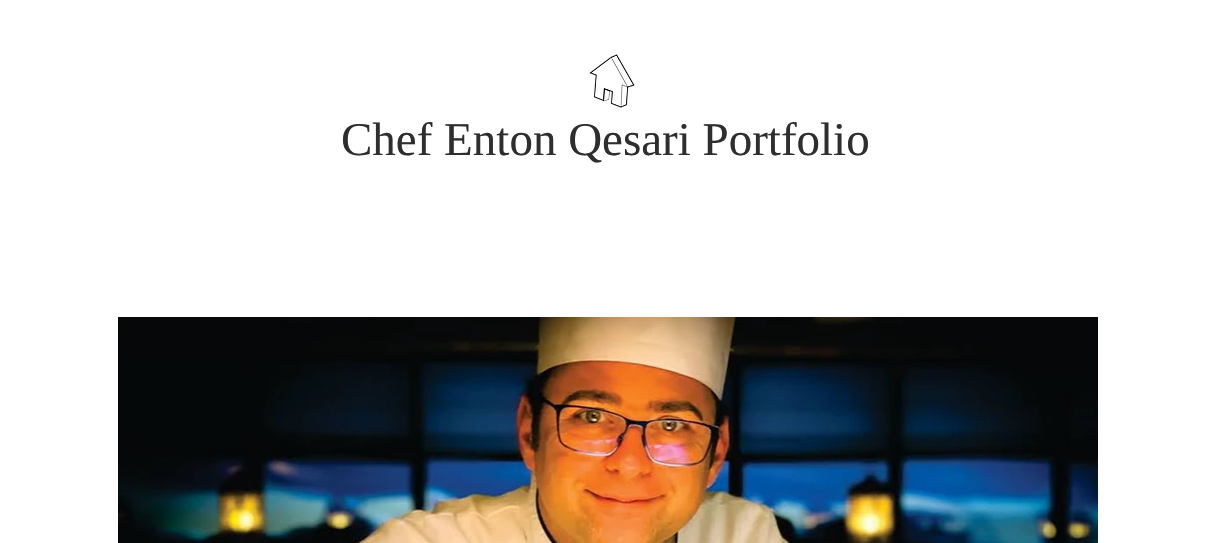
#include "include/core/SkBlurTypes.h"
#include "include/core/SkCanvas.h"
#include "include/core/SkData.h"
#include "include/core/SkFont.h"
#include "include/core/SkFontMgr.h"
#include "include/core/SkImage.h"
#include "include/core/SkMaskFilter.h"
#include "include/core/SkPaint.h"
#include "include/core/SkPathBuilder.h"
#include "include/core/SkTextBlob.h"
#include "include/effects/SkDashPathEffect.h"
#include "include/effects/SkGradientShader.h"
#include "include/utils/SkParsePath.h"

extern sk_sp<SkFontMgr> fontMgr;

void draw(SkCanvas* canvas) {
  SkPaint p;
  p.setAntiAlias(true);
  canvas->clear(SK_ColorWHITE);
  canvas->drawImageRect(SkImages::DeferredFromEncodedData(SkData::MakeFromFileName("images/1.png")), SkRect::MakeLTRB(589, 54, 635, 108), SkSamplingOptions());
  canvas->drawImageRect(SkImages::DeferredFromEncodedData(SkData::MakeFromFileName("images/2.png")), SkRect::MakeLTRB(118, 317, 1098, 543), SkSamplingOptions());
  SkFont font1(fontMgr->matchFamilyStyle("Liberation Serif", SkFontStyle::Normal()), 47);
  font1.setSubpixel(true);
  p.setColor(SkColorSetRGB(47, 46, 46));
  canvas->drawString("Chef Enton Qesari Portfolio", 341, 155, font1, p);
}
